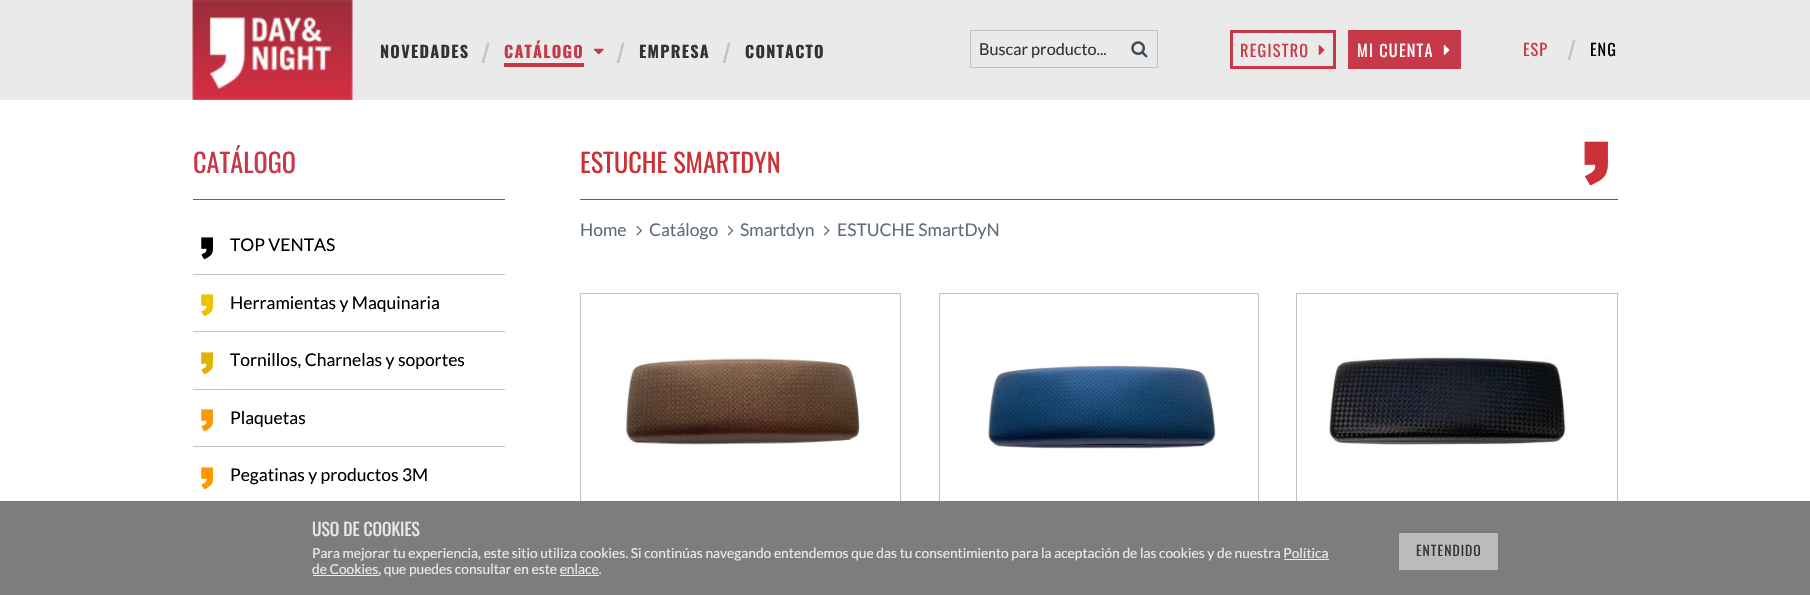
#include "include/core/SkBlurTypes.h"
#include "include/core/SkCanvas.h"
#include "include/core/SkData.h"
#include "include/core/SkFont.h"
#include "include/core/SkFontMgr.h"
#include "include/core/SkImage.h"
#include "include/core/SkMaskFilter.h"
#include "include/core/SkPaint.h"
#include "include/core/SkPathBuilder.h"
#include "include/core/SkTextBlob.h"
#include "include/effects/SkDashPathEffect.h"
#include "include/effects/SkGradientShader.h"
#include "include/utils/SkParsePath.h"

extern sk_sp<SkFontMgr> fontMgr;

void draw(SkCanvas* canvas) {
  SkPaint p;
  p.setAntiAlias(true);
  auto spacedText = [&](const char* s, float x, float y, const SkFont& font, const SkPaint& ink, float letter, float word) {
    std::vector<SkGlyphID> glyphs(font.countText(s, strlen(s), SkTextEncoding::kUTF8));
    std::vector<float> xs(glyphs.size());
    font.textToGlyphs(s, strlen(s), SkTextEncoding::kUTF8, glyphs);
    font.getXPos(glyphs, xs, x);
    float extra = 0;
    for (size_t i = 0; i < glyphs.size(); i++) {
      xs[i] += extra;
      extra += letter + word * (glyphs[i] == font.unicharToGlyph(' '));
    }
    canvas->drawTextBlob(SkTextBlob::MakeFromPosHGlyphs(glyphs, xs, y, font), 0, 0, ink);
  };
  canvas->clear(SK_ColorWHITE);
  p.setColor(SkColorSetRGB(234, 234, 234));
  canvas->drawRect(SkRect::MakeLTRB(0, 0, 1810, 100), p);
  canvas->drawImageRect(SkImages::DeferredFromEncodedData(SkData::MakeFromFileName("images/1.png")), SkRect::MakeLTRB(192, 0, 353, 100), SkSamplingOptions());
  p.setColor(SkColorSetRGB(199, 56, 73));
  canvas->drawRect(SkRect::MakeLTRB(504, 63, 584, 67), p);
  canvas->drawImageRect(SkImages::DeferredFromEncodedData(SkData::MakeFromFileName("images/2.png")), SkRect::MakeLTRB(593, 48, 604, 55), SkSamplingOptions());
  p.setStyle(SkPaint::kStroke_Style);
  p.setStrokeWidth(1);
  p.setColor(SkColorSetRGB(195, 195, 195));
  canvas->drawRect(SkRect::MakeLTRB(970.5f, 30.5f, 1157.5f, 67.5f), p);
  canvas->drawImageRect(SkImages::DeferredFromEncodedData(SkData::MakeFromFileName("images/3.png")), SkRect::MakeLTRB(1131, 41, 1148, 58), SkSamplingOptions());
  p.setStrokeWidth(3);
  p.setColor(SkColorSetRGB(199, 56, 73));
  canvas->drawRect(SkRect::MakeLTRB(1231.5f, 31.5f, 1334.5f, 67.5f), p);
  canvas->drawImageRect(SkImages::DeferredFromEncodedData(SkData::MakeFromFileName("images/4.png")), SkRect::MakeLTRB(1318, 45, 1325, 55), SkSamplingOptions());
  p.setStyle(SkPaint::kFill_Style);
  canvas->drawRect(SkRect::MakeLTRB(1348, 30, 1461, 69), p);
  canvas->drawImageRect(SkImages::DeferredFromEncodedData(SkData::MakeFromFileName("images/5.png")), SkRect::MakeLTRB(1443, 45, 1450, 55), SkSamplingOptions());
  canvas->drawRect(SkRect::MakeLTRB(193, 199, 505, 200), p);
  p.setColor(SkColorSetRGB(195, 195, 195));
  canvas->drawRect(SkRect::MakeLTRB(193, 274, 505, 275), p);
  canvas->drawRect(SkRect::MakeLTRB(193, 331, 505, 332), p);
  canvas->drawRect(SkRect::MakeLTRB(193, 389, 505, 390), p);
  canvas->drawRect(SkRect::MakeLTRB(193, 446, 505, 447), p);
  canvas->drawRect(SkRect::MakeLTRB(193, 504, 505, 505), p);
  canvas->drawRect(SkRect::MakeLTRB(193, 561, 505, 562), p);
  p.setColor(SkColorSetRGB(204, 49, 55));
  canvas->drawRect(SkRect::MakeLTRB(580, 199, 1618, 200), p);
  canvas->drawImageRect(SkImages::DeferredFromEncodedData(SkData::MakeFromFileName("images/6.png")), SkRect::MakeLTRB(636, 225, 642, 236), SkSamplingOptions());
  canvas->drawImageRect(SkImages::DeferredFromEncodedData(SkData::MakeFromFileName("images/7.png")), SkRect::MakeLTRB(727, 225, 734, 236), SkSamplingOptions());
  canvas->drawImageRect(SkImages::DeferredFromEncodedData(SkData::MakeFromFileName("images/8.png")), SkRect::MakeLTRB(823, 225, 830, 236), SkSamplingOptions());
  canvas->drawImageRect(SkImages::DeferredFromEncodedData(SkData::MakeFromFileName("images/9.png")), SkRect::MakeLTRB(625, 354, 860, 445), SkSamplingOptions());
  p.setStyle(SkPaint::kStroke_Style);
  p.setStrokeWidth(1);
  p.setColor(SkColorSetRGB(195, 195, 195));
  canvas->drawRect(SkRect::MakeLTRB(580.5f, 293.5f, 900.5f, 517.5f), p);
  canvas->drawImageRect(SkImages::DeferredFromEncodedData(SkData::MakeFromFileName("images/10.png")), SkRect::MakeLTRB(986, 361, 1216, 449), SkSamplingOptions());
  canvas->drawRect(SkRect::MakeLTRB(939.5f, 293.5f, 1258.5f, 517.5f), p);
  canvas->drawImageRect(SkImages::DeferredFromEncodedData(SkData::MakeFromFileName("images/11.png")), SkRect::MakeLTRB(1329, 357, 1568, 445), SkSamplingOptions());
  canvas->drawRect(SkRect::MakeLTRB(1296.5f, 293.5f, 1617.5f, 517.5f), p);
  p.setStyle(SkPaint::kFill_Style);
  p.setColor(SkColorSetARGB(242, 118, 118, 118));
  canvas->drawRect(SkRect::MakeLTRB(0, 501, 1810, 595), p);
  p.setColor(SkColorSetRGB(234, 234, 234));
  canvas->drawRect(SkRect::MakeLTRB(1284, 559, 1329, 560), p);
  canvas->drawRect(SkRect::MakeLTRB(313, 575, 379, 576), p);
  canvas->drawRect(SkRect::MakeLTRB(560, 575, 599, 576), p);
  p.setColor(SkColorSetRGB(187, 187, 187));
  canvas->drawRect(SkRect::MakeLTRB(1399, 533, 1498, 570), p);
  SkFont font1(fontMgr->matchFamilyStyle("Oswald", SkFontStyle::Bold()), 16.25f);
  font1.setSubpixel(true);
  p.setColor(SkColorSetRGB(51, 51, 51));
  spacedText("NOVEDADES", 380, 58, font1, p, 1.25f, 0);
  SkFont font2(fontMgr->matchFamilyStyle("Oswald", SkFontStyle::Normal()), 25);
  font2.setSubpixel(true);
  p.setColor(SkColorSetRGB(195, 195, 195));
  spacedText("/", 481, 63, font2, p, 1, 0);
  p.setColor(SkColorSetRGB(199, 56, 73));
  spacedText("CATÁLOGO", 504, 58, font1, p, 1.25f, 0);
  p.setColor(SkColorSetRGB(195, 195, 195));
  spacedText("/", 616, 63, font2, p, 1, 0);
  p.setColor(SkColorSetRGB(51, 51, 51));
  spacedText("EMPRESA", 639, 58, font1, p, 1.25f, 0);
  p.setColor(SkColorSetRGB(195, 195, 195));
  spacedText("/", 722, 63, font2, p, 1, 0);
  p.setColor(SkColorSetRGB(51, 51, 51));
  spacedText("CONTACTO", 745, 58, font1, p, 1.25f, 0);
  SkFont font3(fontMgr->matchFamilyStyle("Lato", SkFontStyle::Normal()), 16.25f);
  font3.setSubpixel(true);
  canvas->drawString("Buscar producto...", 979, 55, font3, p);
  SkFont font4(fontMgr->matchFamilyStyle("Oswald", SkFontStyle::Normal()), 16.25f);
  font4.setSubpixel(true);
  p.setColor(SkColorSetRGB(199, 56, 73));
  spacedText("REGISTRO", 1240, 57, font4, p, 1.25f, 0);
  p.setColor(SK_ColorWHITE);
  spacedText("MI CUENTA", 1357, 57, font4, p, 1.25f, 0);
  p.setColor(SkColorSetRGB(199, 56, 73));
  spacedText("ESP", 1523, 56, font4, p, 1, 0);
  p.setColor(SkColorSetRGB(195, 195, 195));
  spacedText("/", 1567, 60, font2, p, 1, 0);
  p.setColor(SK_ColorBLACK);
  spacedText("ENG", 1590, 56, font4, p, 1, 0);
  SkFont font5(fontMgr->matchFamilyStyle("Oswald", SkFontStyle::Normal()), 26.25f);
  font5.setSubpixel(true);
  p.setColor(SkColorSetRGB(199, 56, 73));
  canvas->drawString("CATÁLOGO", 193, 173, font5, p);
  SkFont font6(fontMgr->matchFamilyStyle("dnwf", SkFontStyle::Normal()), 22);
  font6.setSubpixel(true);
  p.setColor(SK_ColorBLACK);
  canvas->drawString(",", 196, 258, font6, p);
  SkFont font7(fontMgr->matchFamilyStyle("Lato", SkFontStyle::Normal()), 17.5f);
  font7.setSubpixel(true);
  canvas->drawString("TOP VENTAS", 230, 251, font7, p);
  p.setColor(SkColorSetRGB(239, 194, 0));
  canvas->drawString(",", 196, 315, font6, p);
  p.setColor(SK_ColorBLACK);
  canvas->drawString("Herramientas y Maquinaria", 230, 309, font7, p);
  p.setColor(SkColorSetRGB(222, 180, 2));
  canvas->drawString(",", 196, 373, font6, p);
  p.setColor(SK_ColorBLACK);
  canvas->drawString("Tornillos, Charnelas y soportes", 230, 366, font7, p);
  p.setColor(SkColorSetRGB(255, 152, 0));
  canvas->drawString(",", 196, 430, font6, p);
  p.setColor(SK_ColorBLACK);
  canvas->drawString("Plaquetas", 230, 424, font7, p);
  p.setColor(SkColorSetRGB(255, 152, 0));
  canvas->drawString(",", 196, 488, font6, p);
  p.setColor(SK_ColorBLACK);
  canvas->drawString("Pegatinas y productos 3M", 230, 481, font7, p);
  p.setColor(SkColorSetRGB(204, 49, 55));
  canvas->drawString("ESTUCHE SMARTDYN", 580, 173, font5, p);
  SkFont font8(fontMgr->matchFamilyStyle("dnwf", SkFontStyle::Normal()), 44);
  font8.setSubpixel(true);
  canvas->drawString(",", 1574, 183, font8, p);
  p.setColor(SkColorSetRGB(95, 109, 123));
  canvas->drawString("Home", 580, 236, font7, p);
  canvas->drawString("Catálogo", 649, 236, font7, p);
  canvas->drawString("Smartdyn", 740, 236, font7, p);
  canvas->drawString("ESTUCHE SmartDyN", 837, 236, font7, p);
  SkFont font9(fontMgr->matchFamilyStyle("Oswald", SkFontStyle::Normal()), 17.5f);
  font9.setSubpixel(true);
  p.setColor(SkColorSetRGB(234, 234, 234));
  canvas->drawString("USO DE COOKIES", 312, 536, font9, p);
  SkFont font10(fontMgr->matchFamilyStyle("Lato", SkFontStyle::Normal()), 13.75f);
  font10.setSubpixel(true);
  canvas->drawString("Para mejorar tu experiencia, este sitio utiliza cookies. Si continúas navegando entendemos que das tu consentimiento para la aceptación de las cookies y de nuestra Política", 312, 558, font10, p);
  canvas->drawString("de Cookies, que puedes consultar en este enlace.", 312, 574, font10, p);
  SkFont font11(fontMgr->matchFamilyStyle("Oswald", SkFontStyle::Normal()), 13.75f);
  font11.setSubpixel(true);
  p.setColor(SkColorSetRGB(51, 51, 51));
  spacedText("ENTENDIDO", 1416, 556, font11, p, 1, 0);
}
